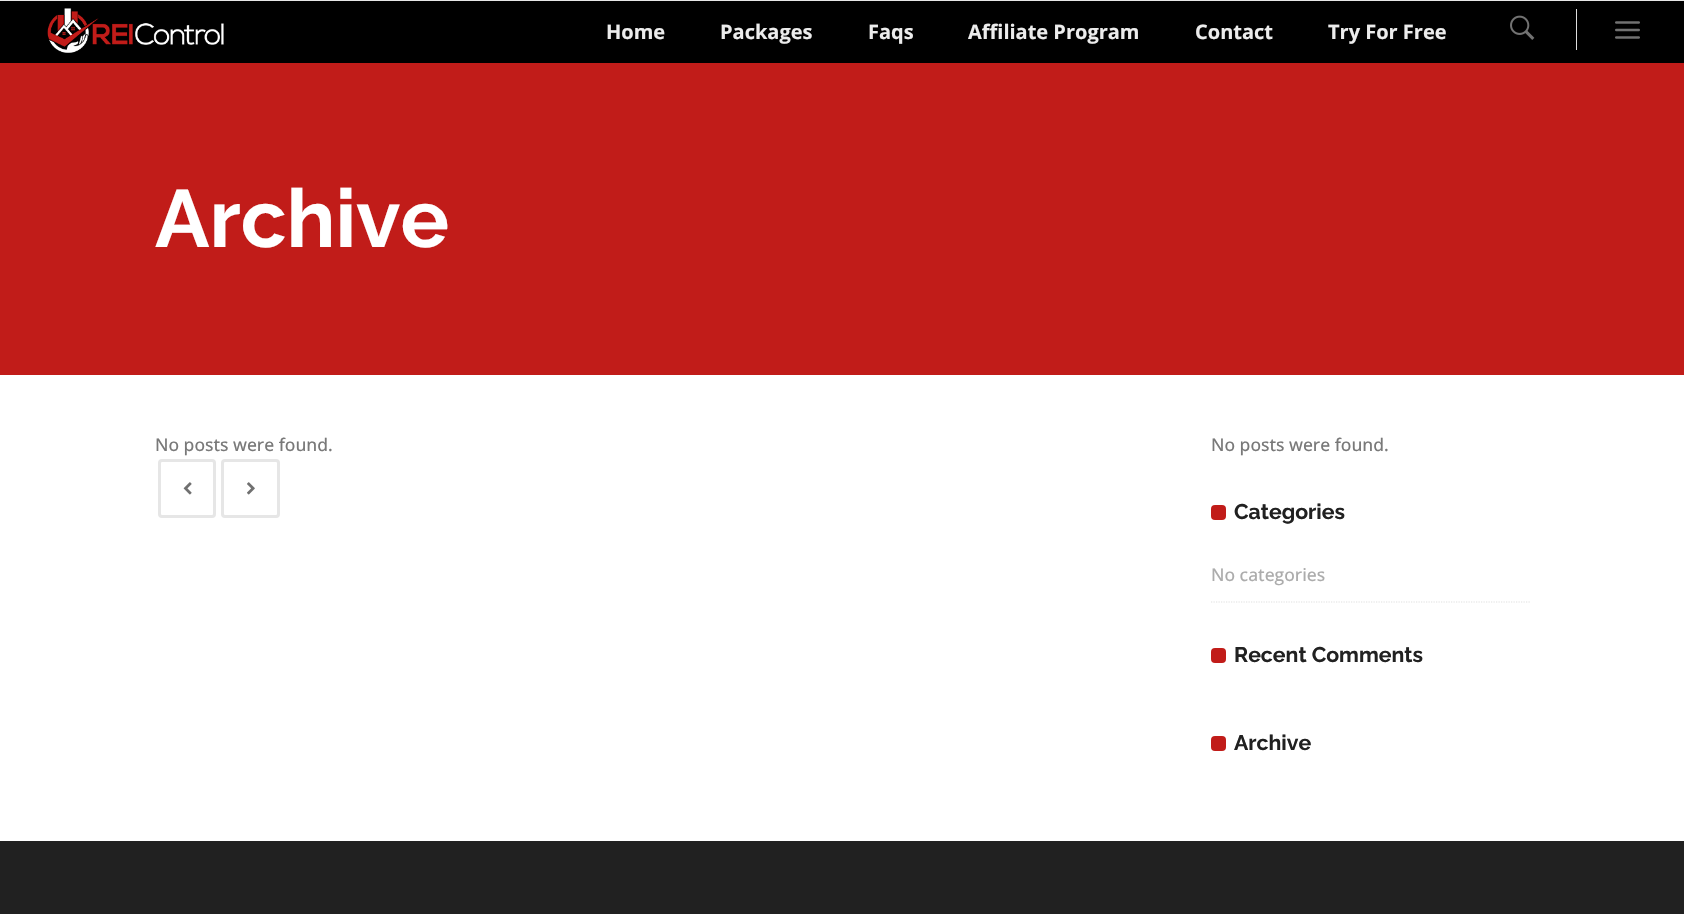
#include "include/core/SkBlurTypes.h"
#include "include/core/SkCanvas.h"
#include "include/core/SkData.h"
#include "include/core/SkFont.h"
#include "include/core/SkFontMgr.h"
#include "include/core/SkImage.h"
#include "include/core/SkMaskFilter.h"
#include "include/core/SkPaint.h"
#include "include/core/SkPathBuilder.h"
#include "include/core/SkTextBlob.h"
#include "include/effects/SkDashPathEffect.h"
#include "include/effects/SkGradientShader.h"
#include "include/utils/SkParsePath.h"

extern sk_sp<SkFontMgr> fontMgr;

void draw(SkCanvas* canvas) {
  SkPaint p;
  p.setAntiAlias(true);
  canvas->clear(SK_ColorWHITE);
  p.setColor(SkColorSetRGB(231, 231, 231));
  canvas->drawRect(SkRect::MakeLTRB(0, 0, 1684, 1), p);
  p.setColor(SK_ColorBLACK);
  canvas->drawRect(SkRect::MakeLTRB(0, 1, 1684, 63), p);
  canvas->drawImageRect(SkImages::DeferredFromEncodedData(SkData::MakeFromFileName("images/1.png")), SkRect::MakeLTRB(47, 8, 224, 53), SkSamplingOptions());
  canvas->drawImageRect(SkImages::DeferredFromEncodedData(SkData::MakeFromFileName("images/2.png")), SkRect::MakeLTRB(1510, 15, 1535, 40), SkSamplingOptions());
  p.setColor(SkColorSetRGB(221, 221, 221));
  canvas->drawRect(SkRect::MakeLTRB(1576, 9, 1577, 50), p);
  canvas->drawImageRect(SkImages::DeferredFromEncodedData(SkData::MakeFromFileName("images/3.png")), SkRect::MakeLTRB(1615, 21, 1640, 39), SkSamplingOptions());
  p.setColor(SkColorSetRGB(193, 28, 25));
  canvas->drawRect(SkRect::MakeLTRB(0, 63, 1684, 375), p);
  p.setStyle(SkPaint::kStroke_Style);
  p.setStrokeWidth(3);
  p.setColor(SkColorSetRGB(230, 230, 230));
  canvas->drawRoundRect(SkRect::MakeLTRB(159.5f, 460.5f, 214.5f, 516.5f), 2.5f, 2.5f, p);
  canvas->drawImageRect(SkImages::DeferredFromEncodedData(SkData::MakeFromFileName("images/4.png")), SkRect::MakeLTRB(183, 482, 192, 495), SkSamplingOptions());
  canvas->drawRoundRect(SkRect::MakeLTRB(222.5f, 460.5f, 278.5f, 516.5f), 2.5f, 2.5f, p);
  canvas->drawImageRect(SkImages::DeferredFromEncodedData(SkData::MakeFromFileName("images/5.png")), SkRect::MakeLTRB(247, 482, 255, 495), SkSamplingOptions());
  p.setStyle(SkPaint::kFill_Style);
  p.setColor(SkColorSetRGB(193, 28, 25));
  canvas->drawRoundRect(SkRect::MakeLTRB(1211, 505, 1226, 520), 4, 4, p);
  p.setStyle(SkPaint::kStroke_Style);
  p.setStrokeWidth(1.2f);
  p.setColor(SkColorSetRGB(223, 223, 223));
  p.setPathEffect(SkDashPathEffect::Make({{1.25f, 1.25f}}, 0));
  canvas->drawPath(SkPathBuilder().moveTo(1211, 602).lineTo(1530, 602).detach(), p);
  p.setPathEffect(nullptr);
  p.setStyle(SkPaint::kFill_Style);
  p.setColor(SkColorSetRGB(193, 28, 25));
  canvas->drawRoundRect(SkRect::MakeLTRB(1211, 648, 1226, 663), 4, 4, p);
  canvas->drawRoundRect(SkRect::MakeLTRB(1211, 736, 1226, 751), 4, 4, p);
  p.setColor(SkColorSetRGB(33, 33, 33));
  canvas->drawRect(SkRect::MakeLTRB(0, 841, 1684, 914), p);
  SkFont font1(fontMgr->matchFamilyStyle("Open Sans", SkFontStyle::Bold()), 20);
  font1.setSubpixel(true);
  p.setColor(SkColorSetRGB(236, 236, 236));
  canvas->drawString("Home", 606, 39, font1, p);
  canvas->drawString("Packages", 720, 39, font1, p);
  canvas->drawString("Faqs", 868, 39, font1, p);
  canvas->drawString("Affiliate Program", 968, 39, font1, p);
  canvas->drawString("Contact", 1195, 39, font1, p);
  canvas->drawString("Try For Free", 1328, 39, font1, p);
  SkFont font2(fontMgr->matchFamilyStyle("Raleway", SkFontStyle::Bold()), 81);
  font2.setSubpixel(true);
  p.setColor(SK_ColorWHITE);
  canvas->drawString("Archive", 155, 247, font2, p);
  SkFont font3(fontMgr->matchFamilyStyle("Open Sans", SkFontStyle(500, SkFontStyle::kNormal_Width, SkFontStyle::kUpright_Slant)), 17.5f);
  font3.setSubpixel(true);
  p.setColor(SkColorSetRGB(121, 121, 121));
  canvas->drawString("No posts were found.", 155, 451, font3, p);
  canvas->drawString("No posts were found.", 1211, 451, font3, p);
  SkFont font4(fontMgr->matchFamilyStyle("Raleway", SkFontStyle::Bold()), 21.25f);
  font4.setSubpixel(true);
  p.setColor(SkColorSetRGB(33, 33, 33));
  canvas->drawString("Categories", 1234, 519, font4, p);
  p.setColor(SkColorSetRGB(172, 172, 172));
  canvas->drawString("No categories", 1211, 581, font3, p);
  p.setColor(SkColorSetRGB(33, 33, 33));
  canvas->drawString("Recent Comments", 1234, 662, font4, p);
  canvas->drawString("Archive", 1234, 750, font4, p);
}
